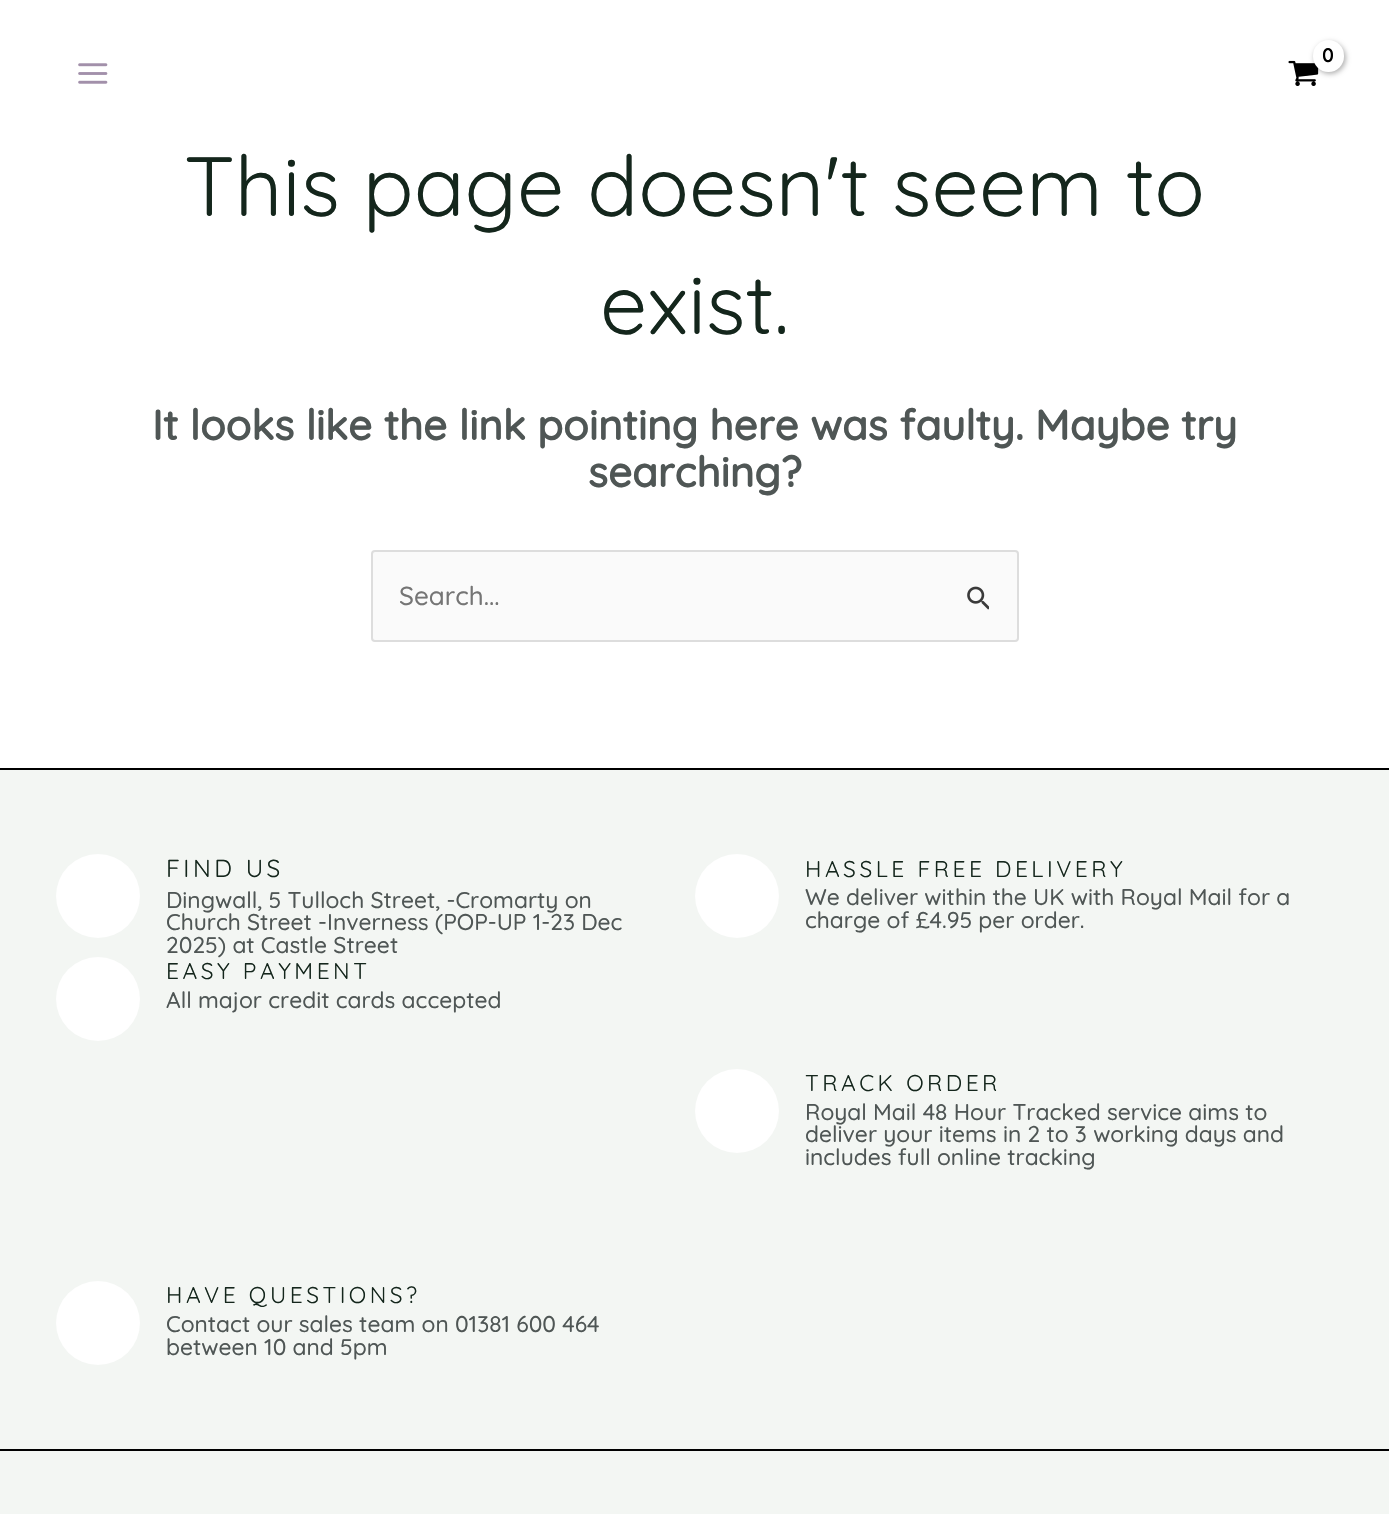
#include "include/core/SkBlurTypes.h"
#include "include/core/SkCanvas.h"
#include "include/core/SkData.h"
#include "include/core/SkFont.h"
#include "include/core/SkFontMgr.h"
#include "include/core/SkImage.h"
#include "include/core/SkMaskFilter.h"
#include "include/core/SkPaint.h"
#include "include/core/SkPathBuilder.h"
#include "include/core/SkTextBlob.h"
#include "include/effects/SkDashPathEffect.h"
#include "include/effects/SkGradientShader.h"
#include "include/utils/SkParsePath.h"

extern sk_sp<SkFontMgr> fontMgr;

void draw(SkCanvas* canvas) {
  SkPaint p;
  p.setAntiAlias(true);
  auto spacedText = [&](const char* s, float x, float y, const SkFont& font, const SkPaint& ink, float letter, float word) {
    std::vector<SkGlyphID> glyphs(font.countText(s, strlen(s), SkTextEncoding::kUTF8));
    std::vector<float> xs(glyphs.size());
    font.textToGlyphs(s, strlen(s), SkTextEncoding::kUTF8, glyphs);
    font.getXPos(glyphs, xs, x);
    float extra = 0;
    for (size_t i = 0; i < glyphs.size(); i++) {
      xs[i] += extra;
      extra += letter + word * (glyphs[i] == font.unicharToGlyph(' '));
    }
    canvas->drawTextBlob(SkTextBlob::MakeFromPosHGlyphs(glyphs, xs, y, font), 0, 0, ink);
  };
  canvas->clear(SK_ColorWHITE);
  canvas->drawImageRect(SkImages::DeferredFromEncodedData(SkData::MakeFromFileName("images/1.png")), SkRect::MakeLTRB(1288, 60, 1319, 86), SkSamplingOptions());
  p.setColor(SkColorSetARGB(77, 0, 0, 0));
  p.setMaskFilter(SkMaskFilter::MakeBlur(kNormal_SkBlurStyle, 2.5f));
  canvas->drawRoundRect(SkRect::MakeLTRB(1314, 42, 1346, 74), 16, 16, p);
  p.setMaskFilter(nullptr);
  p.setColor(SK_ColorWHITE);
  canvas->drawRoundRect(SkRect::MakeLTRB(1313, 40, 1344, 72), 15.5f, 15.5f, p);
  canvas->drawImageRect(SkImages::DeferredFromEncodedData(SkData::MakeFromFileName("images/2.png")), SkRect::MakeLTRB(78, 63, 108, 84), SkSamplingOptions());
  p.setColor(SkColorSetRGB(250, 250, 250));
  canvas->drawRoundRect(SkRect::MakeLTRB(372, 551, 1018, 641), 3, 3, p);
  p.setStyle(SkPaint::kStroke_Style);
  p.setStrokeWidth(2);
  p.setColor(SkColorSetRGB(221, 221, 221));
  canvas->drawRoundRect(SkRect::MakeLTRB(372, 551, 1018, 641), 3, 3, p);
  canvas->drawImageRect(SkImages::DeferredFromEncodedData(SkData::MakeFromFileName("images/3.png")), SkRect::MakeLTRB(967, 586, 989, 610), SkSamplingOptions());
  p.setStyle(SkPaint::kFill_Style);
  p.setColor(SkColorSetRGB(243, 246, 243));
  canvas->drawRect(SkRect::MakeLTRB(0, 770, 1389, 1449), p);
  p.setColor(SK_ColorBLACK);
  canvas->drawRect(SkRect::MakeLTRB(0, 768, 1389, 770), p);
  p.setColor(SK_ColorWHITE);
  canvas->drawCircle(98, 896, 42, p);
  canvas->drawCircle(737, 896, 42, p);
  canvas->drawCircle(98, 999, 42, p);
  canvas->drawCircle(737, 1111, 42, p);
  canvas->drawCircle(98, 1323, 42, p);
  p.setColor(SkColorSetRGB(243, 246, 243));
  canvas->drawRect(SkRect::MakeLTRB(0, 1451, 1389, 1514), p);
  p.setColor(SK_ColorBLACK);
  canvas->drawRect(SkRect::MakeLTRB(0, 1449, 1389, 1451), p);
  SkFont font1(fontMgr->matchFamilyStyle("Quicksand", SkFontStyle::Bold()), 19);
  font1.setSubpixel(true);
  spacedText("0", 1322, 62, font1, p, -1, 0);
  SkFont font2(fontMgr->matchFamilyStyle("Quicksand", SkFontStyle::Normal()), 84);
  font2.setSubpixel(true);
  p.setColor(SkColorSetRGB(20, 38, 28));
  canvas->drawString("This page doesn't seem to", 184, 216, font2, p);
  canvas->drawString("exist.", 600, 334, font2, p);
  SkFont font3(fontMgr->matchFamilyStyle("Quicksand", SkFontStyle::Bold()), 42);
  font3.setSubpixel(true);
  p.setColor(SkColorSetRGB(79, 86, 85));
  canvas->drawString("It looks like the link pointing here was faulty. Maybe try", 152, 440, font3, p);
  canvas->drawString("searching?", 588, 487, font3, p);
  SkFont font4(fontMgr->matchFamilyStyle("Quicksand", SkFontStyle(500, SkFontStyle::kNormal_Width, SkFontStyle::kUpright_Slant)), 26);
  font4.setSubpixel(true);
  p.setColor(SkColorSetRGB(117, 117, 117));
  canvas->drawString("Search...", 399, 605, font4, p);
  SkFont font5(fontMgr->matchFamilyStyle("Quicksand", SkFontStyle::Normal()), 24.5f);
  font5.setSubpixel(true);
  p.setColor(SkColorSetRGB(20, 38, 28));
  spacedText("FIND US", 166, 877, font5, p, 3.5f, 0);
  SkFont font6(fontMgr->matchFamilyStyle("Quicksand", SkFontStyle(500, SkFontStyle::kNormal_Width, SkFontStyle::kUpright_Slant)), 22.75f);
  font6.setSubpixel(true);
  p.setColor(SkColorSetRGB(79, 86, 85));
  canvas->drawString("Dingwall, 5 Tulloch Street, -Cromarty on", 166, 908, font6, p);
  canvas->drawString("Church Street -Inverness (POP-UP 1-23 Dec", 166, 930, font6, p);
  canvas->drawString("2025) at Castle Street", 166, 953, font6, p);
  SkFont font7(fontMgr->matchFamilyStyle("Quicksand", SkFontStyle::Normal()), 22.75f);
  font7.setSubpixel(true);
  p.setColor(SkColorSetRGB(20, 38, 28));
  spacedText("HASSLE FREE DELIVERY", 805, 877, font7, p, 3.5f, 0);
  p.setColor(SkColorSetRGB(79, 86, 85));
  canvas->drawString("We deliver within the UK with Royal Mail for a", 805, 905, font6, p);
  canvas->drawString("charge of £4.95 per order.", 805, 928, font6, p);
  p.setColor(SkColorSetRGB(20, 38, 28));
  spacedText("EASY PAYMENT", 166, 979, font7, p, 3.5f, 0);
  p.setColor(SkColorSetRGB(79, 86, 85));
  canvas->drawString("All major credit cards accepted", 166, 1008, font6, p);
  p.setColor(SkColorSetRGB(20, 38, 28));
  spacedText("TRACK ORDER", 805, 1091, font7, p, 3.5f, 0);
  p.setColor(SkColorSetRGB(79, 86, 85));
  canvas->drawString("Royal Mail 48 Hour Tracked service aims to", 805, 1120, font6, p);
  canvas->drawString("deliver your items in 2 to 3 working days and", 805, 1142, font6, p);
  canvas->drawString("includes full online tracking", 805, 1165, font6, p);
  p.setColor(SkColorSetRGB(20, 38, 28));
  spacedText("HAVE QUESTIONS?", 166, 1303, font7, p, 3.5f, 0);
  p.setColor(SkColorSetRGB(79, 86, 85));
  canvas->drawString("Contact our sales team on 01381 600 464", 166, 1332, font6, p);
  canvas->drawString("between 10 and 5pm", 166, 1355, font6, p);
}
